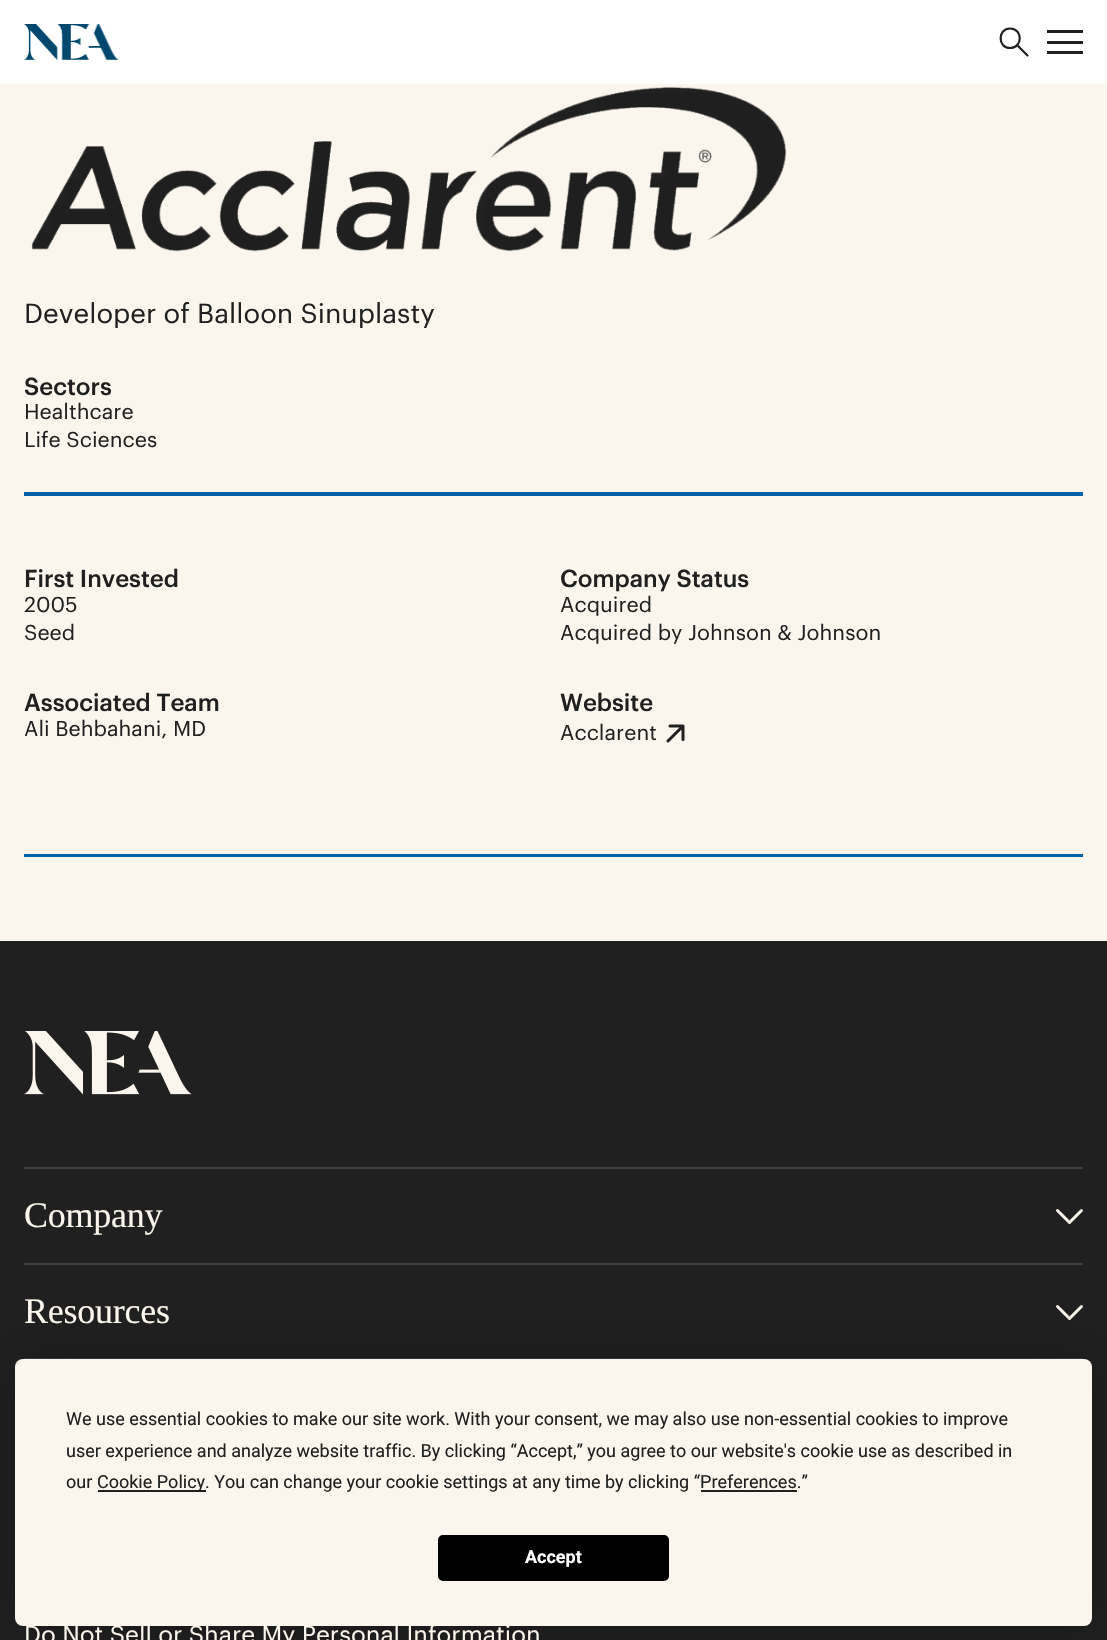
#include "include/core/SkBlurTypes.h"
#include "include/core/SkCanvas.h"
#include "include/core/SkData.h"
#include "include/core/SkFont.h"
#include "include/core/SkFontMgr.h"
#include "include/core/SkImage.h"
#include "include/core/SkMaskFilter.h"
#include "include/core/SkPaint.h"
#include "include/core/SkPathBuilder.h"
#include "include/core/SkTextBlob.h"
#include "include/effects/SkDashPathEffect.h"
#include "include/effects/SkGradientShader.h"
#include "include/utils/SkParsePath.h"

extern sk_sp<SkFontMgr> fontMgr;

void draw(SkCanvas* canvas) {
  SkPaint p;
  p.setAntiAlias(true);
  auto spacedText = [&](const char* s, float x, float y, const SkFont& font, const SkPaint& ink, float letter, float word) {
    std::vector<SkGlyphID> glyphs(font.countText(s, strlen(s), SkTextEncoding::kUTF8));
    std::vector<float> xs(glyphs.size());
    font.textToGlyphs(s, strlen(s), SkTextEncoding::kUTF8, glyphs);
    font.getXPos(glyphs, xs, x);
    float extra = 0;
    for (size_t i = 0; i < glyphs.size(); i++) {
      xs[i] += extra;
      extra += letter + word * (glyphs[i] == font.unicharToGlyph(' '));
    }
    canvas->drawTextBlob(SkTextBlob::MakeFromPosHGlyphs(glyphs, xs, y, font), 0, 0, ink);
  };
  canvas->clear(SkColorSetRGB(250, 246, 237));
  p.setColor(SK_ColorWHITE);
  canvas->drawRect(SkRect::MakeLTRB(0, 0, 1107, 84), p);
  canvas->drawImageRect(SkImages::DeferredFromEncodedData(SkData::MakeFromFileName("images/1.png")), SkRect::MakeLTRB(24, 24, 119, 60), SkSamplingOptions());
  p.setStyle(SkPaint::kStroke_Style);
  p.setStrokeWidth(2.2f);
  p.setStrokeCap(SkPaint::kRound_Cap);
  p.setStrokeJoin(SkPaint::kRound_Join);
  p.setColor(SkColorSetRGB(32, 32, 32));
  canvas->drawPath(SkPathBuilder().moveTo(1010, 48).cubicTo(1023, 48, 1023, 28.5f, 1010, 28.5f).cubicTo(997.5f, 28.5f, 997.5f, 48, 1010, 48).moveTo(1027.5f, 55.5f).lineTo(1017, 45).detach(), p);
  p.setStyle(SkPaint::kFill_Style);
  canvas->drawRect(SkRect::MakeLTRB(1047, 30, 1083, 33), p);
  canvas->drawRect(SkRect::MakeLTRB(1047, 41, 1083, 44), p);
  canvas->drawRect(SkRect::MakeLTRB(1047, 51, 1083, 54), p);
  canvas->drawImageRect(SkImages::DeferredFromEncodedData(SkData::MakeFromFileName("images/2.png")), SkRect::MakeLTRB(31, 87, 787, 252), SkSamplingOptions());
  p.setColor(SkColorSetRGB(0, 98, 168));
  canvas->drawRect(SkRect::MakeLTRB(24, 492, 1083, 496), p);
  p.setStyle(SkPaint::kStroke_Style);
  p.setStrokeWidth(3);
  p.setColor(SkColorSetRGB(32, 32, 32));
  canvas->drawPath(SkPathBuilder().moveTo(668, 741).lineTo(683, 726).moveTo(683, 726).lineTo(670, 726).moveTo(683, 726).lineTo(683, 739.5f).detach(), p);
  p.setStyle(SkPaint::kFill_Style);
  p.setColor(SkColorSetRGB(0, 98, 168));
  canvas->drawRect(SkRect::MakeLTRB(24, 854, 1083, 857), p);
  p.setColor(SkColorSetRGB(32, 32, 32));
  canvas->drawRect(SkRect::MakeLTRB(0, 941, 1107, 1640), p);
  p.setColor(SkColorSetRGB(60, 60, 60));
  canvas->drawRect(SkRect::MakeLTRB(24, 1358, 1083, 1359), p);
  canvas->drawImageRect(SkImages::DeferredFromEncodedData(SkData::MakeFromFileName("images/3.png")), SkRect::MakeLTRB(24, 1031, 192, 1095), SkSamplingOptions());
  p.setColor(SkColorSetRGB(64, 64, 64));
  canvas->drawRect(SkRect::MakeLTRB(24, 1167, 1083, 1169), p);
  p.setStyle(SkPaint::kStroke_Style);
  p.setColor(SkColorSetRGB(250, 246, 237));
  canvas->drawPath(SkPathBuilder().moveTo(1081.5f, 1210.5f).lineTo(1069.5f, 1222.5f).lineTo(1057.5f, 1210.5f).detach(), p);
  p.setStyle(SkPaint::kFill_Style);
  p.setColor(SkColorSetRGB(64, 64, 64));
  canvas->drawRect(SkRect::MakeLTRB(24, 1263, 1083, 1265), p);
  p.setStyle(SkPaint::kStroke_Style);
  p.setColor(SkColorSetRGB(250, 246, 237));
  canvas->drawPath(SkPathBuilder().moveTo(1081.5f, 1306.5f).lineTo(1069.5f, 1318.5f).lineTo(1057.5f, 1306.5f).detach(), p);
  p.setStyle(SkPaint::kFill_Style);
  p.setColor(SkColorSetARGB(64, 0, 0, 0));
  p.setMaskFilter(SkMaskFilter::MakeBlur(kNormal_SkBlurStyle, 26));
  canvas->drawRoundRect(SkRect::MakeLTRB(15, 1359, 1092, 1626), 8, 8, p);
  p.setMaskFilter(nullptr);
  p.setColor(SkColorSetRGB(250, 246, 237));
  canvas->drawRoundRect(SkRect::MakeLTRB(15, 1359, 1092, 1626), 8, 8, p);
  p.setColor(SkColorSetRGB(32, 32, 32));
  canvas->drawRect(SkRect::MakeLTRB(98, 1490, 206, 1492), p);
  canvas->drawRect(SkRect::MakeLTRB(701, 1490, 797, 1492), p);
  p.setColor(SK_ColorBLACK);
  canvas->drawRoundRect(SkRect::MakeLTRB(439, 1536, 668, 1580), 4, 4, p);
  p.setStyle(SkPaint::kStroke_Style);
  p.setStrokeWidth(2);
  p.setStrokeCap(SkPaint::kButt_Cap);
  p.setStrokeJoin(SkPaint::kMiter_Join);
  canvas->drawRoundRect(SkRect::MakeLTRB(439, 1536, 668, 1580), 4, 4, p);
  SkFont font1(fontMgr->matchFamilyStyle("Graphik", SkFontStyle::Normal()), 27);
  font1.setSubpixel(true);
  p.setStyle(SkPaint::kFill_Style);
  p.setColor(SkColorSetRGB(32, 32, 32));
  canvas->drawString("Developer of Balloon Sinuplasty", 24, 323, font1, p);
  SkFont font2(fontMgr->matchFamilyStyle("Graphik", SkFontStyle(500, SkFontStyle::kNormal_Width, SkFontStyle::kUpright_Slant)), 24);
  font2.setSubpixel(true);
  canvas->drawString("Sectors", 24, 395, font2, p);
  SkFont font3(fontMgr->matchFamilyStyle("Graphik", SkFontStyle::Normal()), 21);
  font3.setSubpixel(true);
  canvas->drawString("Healthcare", 24, 419, font3, p);
  canvas->drawString("Life Sciences", 24, 447, font3, p);
  canvas->drawString("First Invested", 24, 587, font2, p);
  canvas->drawString("2005", 24, 612, font3, p);
  canvas->drawString("Seed", 24, 640, font3, p);
  canvas->drawString("Company Status", 560, 587, font2, p);
  canvas->drawString("Acquired", 560, 612, font3, p);
  canvas->drawString("Acquired by Johnson & Johnson", 560, 640, font3, p);
  canvas->drawString("Associated Team", 24, 711, font2, p);
  canvas->drawString("Ali Behbahani, MD", 24, 736, font3, p);
  canvas->drawString("Website", 560, 711, font2, p);
  canvas->drawString("Acclarent", 560, 740, font3, p);
  SkFont font4(fontMgr->matchFamilyStyle("Liberation Serif", SkFontStyle::Normal()), 36);
  font4.setSubpixel(true);
  p.setColor(SkColorSetRGB(250, 246, 237));
  spacedText("Company", 24, 1227, font4, p, -0.25f, 0);
  spacedText("Resources", 24, 1323, font4, p, -0.25f, 0);
  SkFont font5(fontMgr->matchFamilyStyle("Graphik", SkFontStyle::Normal()), 24);
  font5.setSubpixel(true);
  canvas->drawString("Do Not Sell or Share My Personal Information", 24, 1643, font5, p);
  SkFont font6(fontMgr->matchFamilyStyle("Roboto", SkFontStyle::Normal()), 18);
  font6.setSubpixel(true);
  p.setColor(SkColorSetRGB(32, 32, 32));
  canvas->drawString("We use essential cookies to make our site work. With your consent, we may also use non-essential cookies to improve", 66, 1425, font6, p);
  canvas->drawString("user experience and analyze website traffic. By clicking “Accept,” you agree to our website's cookie use as described in", 66, 1457, font6, p);
  canvas->drawString("our", 66, 1488, font6, p);
  canvas->drawString("Cookie Policy. You can change your cookie settings at any time by clicking “Preferences.”", 97, 1488, font6, p);
  SkFont font7(fontMgr->matchFamilyStyle("Roboto", SkFontStyle::Bold()), 18);
  font7.setSubpixel(true);
  p.setColor(SK_ColorWHITE);
  canvas->drawString("Accept", 525, 1563, font7, p);
}
